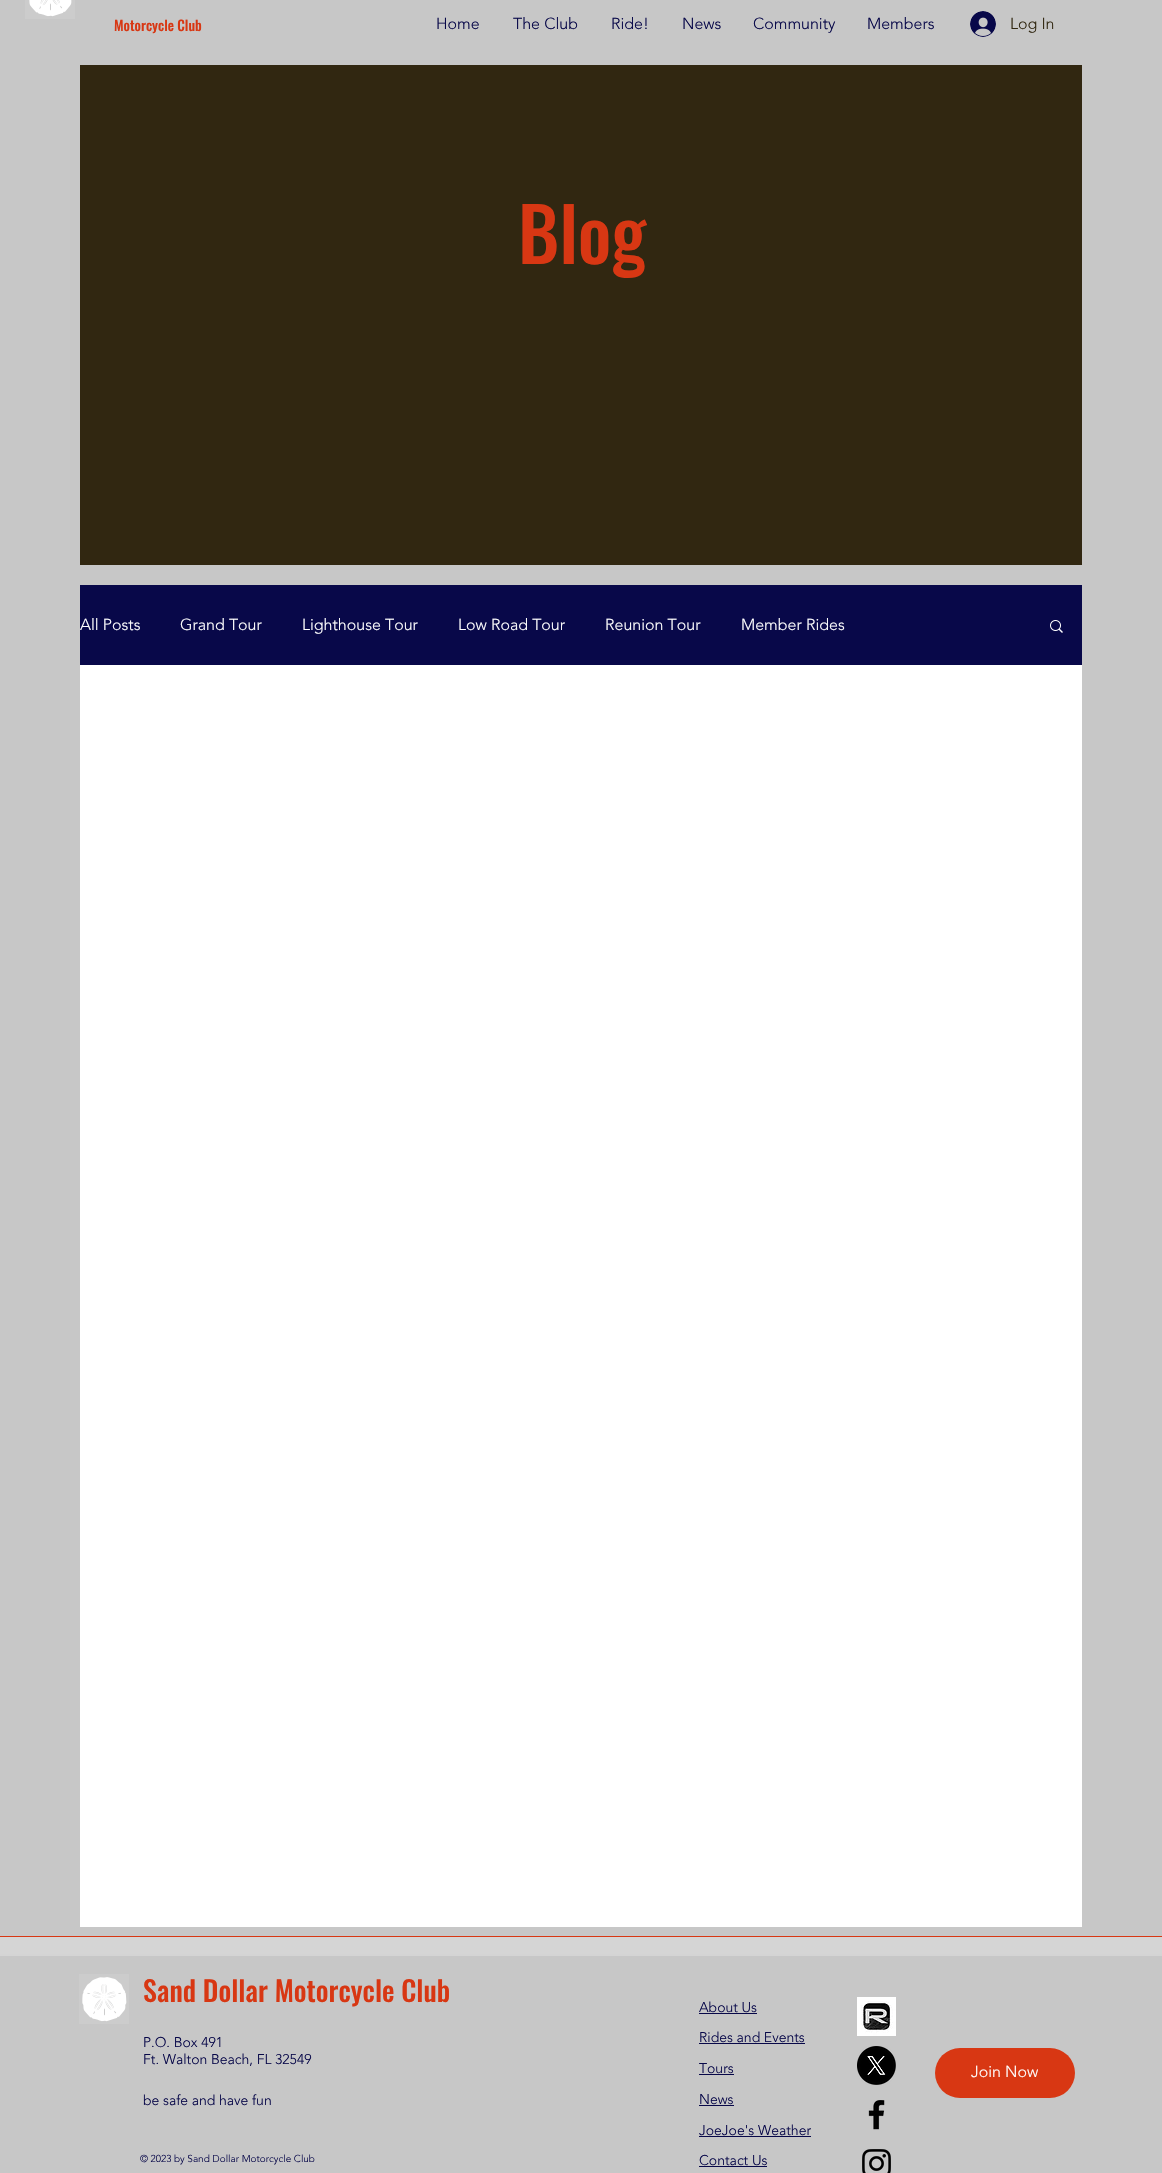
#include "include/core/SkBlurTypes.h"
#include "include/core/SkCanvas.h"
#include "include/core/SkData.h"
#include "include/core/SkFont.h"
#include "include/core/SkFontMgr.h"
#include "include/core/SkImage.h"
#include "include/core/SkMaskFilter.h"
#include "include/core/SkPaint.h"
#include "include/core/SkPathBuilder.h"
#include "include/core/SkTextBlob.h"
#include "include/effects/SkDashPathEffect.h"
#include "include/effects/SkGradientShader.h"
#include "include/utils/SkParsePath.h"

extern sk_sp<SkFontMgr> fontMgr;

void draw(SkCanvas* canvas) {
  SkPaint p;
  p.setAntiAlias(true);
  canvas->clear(SkColorSetRGB(199, 199, 199));
  canvas->drawImageRect(SkImages::DeferredFromEncodedData(SkData::MakeFromFileName("images/1.png")), SkRect::MakeLTRB(25, 0, 75, 19), SkSamplingOptions());
  canvas->drawImageRect(SkImages::DeferredFromEncodedData(SkData::MakeFromFileName("images/2.png")), SkRect::MakeLTRB(970, 11, 996, 37), SkSamplingOptions());
  p.setColor(SkColorSetRGB(49, 39, 17));
  canvas->drawRect(SkRect::MakeLTRB(80, 65, 1082, 565), p);
  p.setColor(SK_ColorWHITE);
  canvas->drawRect(SkRect::MakeLTRB(80, 665, 1082, 1927), p);
  p.setColor(SkColorSetRGB(8, 8, 73));
  canvas->drawRect(SkRect::MakeLTRB(80, 585, 1082, 665), p);
  canvas->drawImageRect(SkImages::DeferredFromEncodedData(SkData::MakeFromFileName("images/3.png")), SkRect::MakeLTRB(1050, 620, 1063, 633), SkSamplingOptions());
  canvas->drawImageRect(SkImages::DeferredFromEncodedData(SkData::MakeFromFileName("images/4.png")), SkRect::MakeLTRB(0, 1937, 1162, 1956), SkSamplingOptions());
  p.setColor(SkColorSetRGB(216, 55, 19));
  canvas->drawRect(SkRect::MakeLTRB(0, 1936, 1162, 1937), p);
  canvas->drawImageRect(SkImages::DeferredFromEncodedData(SkData::MakeFromFileName("images/5.png")), SkRect::MakeLTRB(79, 1974, 129, 2024), SkSamplingOptions());
  p.setColor(SkColorSetRGB(8, 8, 73));
  canvas->drawRect(SkRect::MakeLTRB(699, 2013, 757, 2014), p);
  canvas->drawRect(SkRect::MakeLTRB(699, 2043, 805, 2044), p);
  canvas->drawRect(SkRect::MakeLTRB(699, 2074, 734, 2075), p);
  canvas->drawRect(SkRect::MakeLTRB(699, 2105, 734, 2106), p);
  canvas->drawRect(SkRect::MakeLTRB(699, 2136, 811, 2137), p);
  canvas->drawRect(SkRect::MakeLTRB(699, 2166, 767, 2167), p);
  canvas->drawImageRect(SkImages::DeferredFromEncodedData(SkData::MakeFromFileName("images/6.png")), SkRect::MakeLTRB(857, 1997, 896, 2036), SkSamplingOptions());
  canvas->drawImageRect(SkImages::DeferredFromEncodedData(SkData::MakeFromFileName("images/7.png")), SkRect::MakeLTRB(857, 2046, 896, 2085), SkSamplingOptions());
  canvas->drawImageRect(SkImages::DeferredFromEncodedData(SkData::MakeFromFileName("images/8.png")), SkRect::MakeLTRB(868, 2100, 885, 2130), SkSamplingOptions());
  canvas->drawImageRect(SkImages::DeferredFromEncodedData(SkData::MakeFromFileName("images/9.png")), SkRect::MakeLTRB(862, 2149, 891, 2173), SkSamplingOptions());
  p.setColor(SkColorSetRGB(216, 55, 19));
  canvas->drawRoundRect(SkRect::MakeLTRB(935, 2048, 1075, 2098), 25, 25, p);
  SkFont font1(fontMgr->matchFamilyStyle("Oswald", SkFontStyle(500, SkFontStyle::kNormal_Width, SkFontStyle::kUpright_Slant)), 14);
  font1.setSubpixel(true);
  canvas->drawString("Motorcycle Club", 114, 31, font1, p);
  SkFont font2(fontMgr->matchFamilyStyle("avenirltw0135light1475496", SkFontStyle(300, SkFontStyle::kNormal_Width, SkFontStyle::kUpright_Slant)), 16);
  font2.setSubpixel(true);
  p.setColor(SkColorSetRGB(8, 8, 73));
  canvas->drawString("Home", 436, 29, font2, p);
  canvas->drawString("The Club", 513, 29, font2, p);
  canvas->drawString("Ride!", 611, 29, font2, p);
  canvas->drawString("News", 682, 29, font2, p);
  canvas->drawString("Community", 753, 29, font2, p);
  canvas->drawString("Members", 867, 29, font2, p);
  p.setColor(SkColorSetRGB(49, 39, 17));
  canvas->drawString("Log In", 1010, 29, font2, p);
  SkFont font3(fontMgr->matchFamilyStyle("Oswald", SkFontStyle(500, SkFontStyle::kNormal_Width, SkFontStyle::kUpright_Slant)), 74);
  font3.setSubpixel(true);
  p.setColor(SkColorSetRGB(216, 55, 19));
  canvas->drawString("Blog", 518, 264, font3, p);
  p.setColor(SK_ColorWHITE);
  canvas->drawString("All Posts", 80, 630, font2, p);
  canvas->drawString("Grand Tour", 180, 630, font2, p);
  canvas->drawString("Lighthouse Tour", 302, 630, font2, p);
  canvas->drawString("Low Road Tour", 458, 630, font2, p);
  canvas->drawString("Reunion Tour", 605, 630, font2, p);
  canvas->drawString("Member Rides", 741, 630, font2, p);
  SkFont font4(fontMgr->matchFamilyStyle("Oswald", SkFontStyle(500, SkFontStyle::kNormal_Width, SkFontStyle::kUpright_Slant)), 28);
  font4.setSubpixel(true);
  p.setColor(SkColorSetRGB(216, 55, 19));
  canvas->drawString("Sand Dollar Motorcycle Club", 143, 2002, font4, p);
  SkFont font5(fontMgr->matchFamilyStyle("avenirltw0135light1475496", SkFontStyle(300, SkFontStyle::kNormal_Width, SkFontStyle::kUpright_Slant)), 14);
  font5.setSubpixel(true);
  p.setColor(SkColorSetRGB(8, 8, 73));
  canvas->drawString("P.O. Box 491", 143, 2047, font5, p);
  canvas->drawString("Ft. Walton Beach, FL 32549", 143, 2064, font5, p);
  canvas->drawString("be safe and have fun", 143, 2105, font5, p);
  SkFont font6(fontMgr->matchFamilyStyle("avenirltw0135light1475496", SkFontStyle(300, SkFontStyle::kNormal_Width, SkFontStyle::kUpright_Slant)), 10);
  font6.setSubpixel(true);
  canvas->drawString("© 2023 by Sand Dollar Motorcycle Club", 140, 2162, font6, p);
  canvas->drawString("About Us", 699, 2012, font5, p);
  canvas->drawString("Rides and Events", 699, 2042, font5, p);
  canvas->drawString("Tours", 699, 2073, font5, p);
  canvas->drawString("News", 699, 2104, font5, p);
  canvas->drawString("JoeJoe's Weather", 699, 2135, font5, p);
  canvas->drawString("Contact Us", 699, 2165, font5, p);
  p.setColor(SK_ColorWHITE);
  canvas->drawString("Join Now", 971, 2077, font2, p);
}
